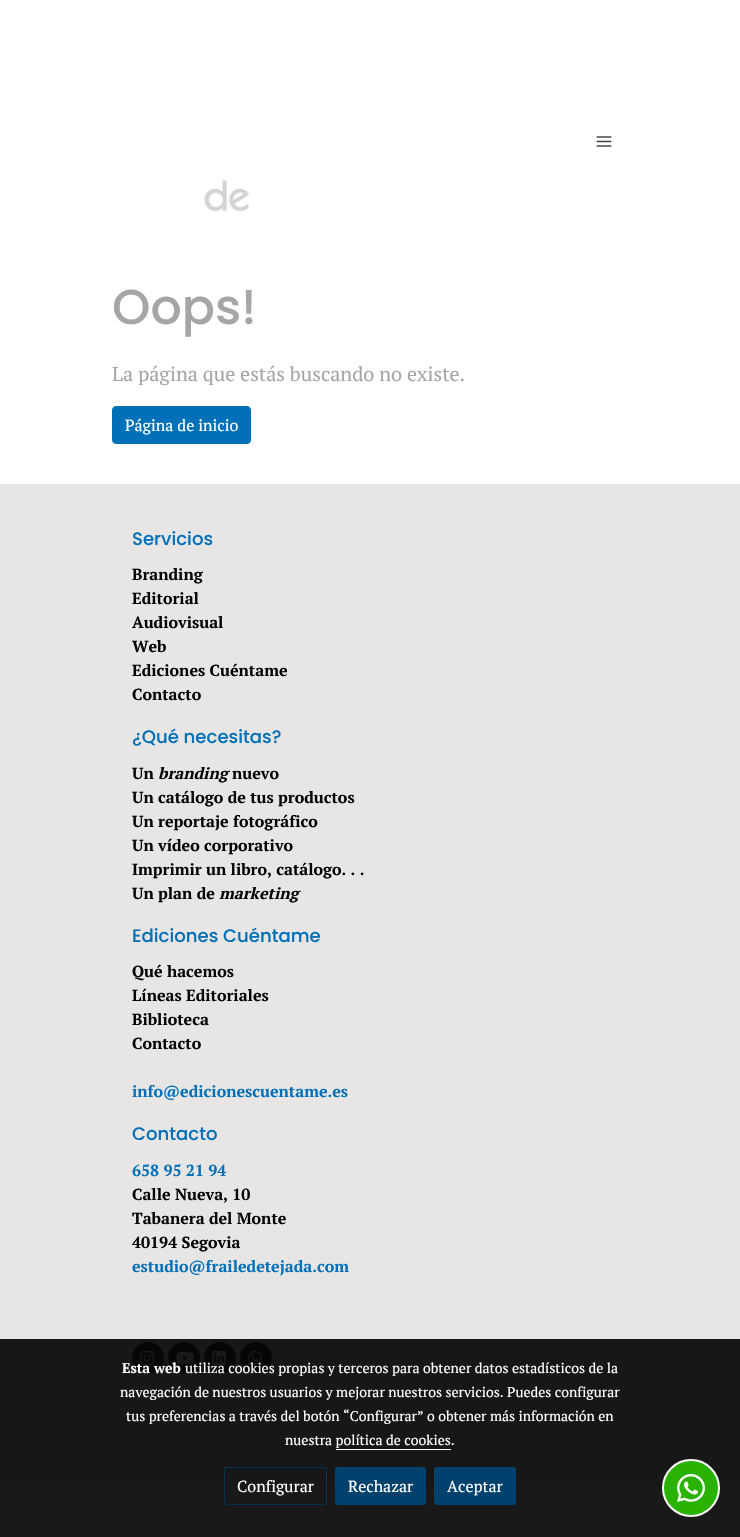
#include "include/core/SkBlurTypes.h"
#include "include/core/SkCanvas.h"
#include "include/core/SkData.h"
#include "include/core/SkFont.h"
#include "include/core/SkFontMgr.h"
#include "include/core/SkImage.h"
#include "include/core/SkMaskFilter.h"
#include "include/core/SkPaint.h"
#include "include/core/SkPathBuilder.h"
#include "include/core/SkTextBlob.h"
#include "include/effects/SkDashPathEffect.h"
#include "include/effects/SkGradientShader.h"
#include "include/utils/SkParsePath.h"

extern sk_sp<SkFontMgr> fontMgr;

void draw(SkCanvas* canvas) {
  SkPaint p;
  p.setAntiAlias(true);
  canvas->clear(SK_ColorWHITE);
  canvas->drawImageRect(SkImages::DeferredFromEncodedData(SkData::MakeFromFileName("images/1.png")), SkRect::MakeLTRB(596, 136, 612, 147), SkSamplingOptions());
  canvas->drawImageRect(SkImages::DeferredFromEncodedData(SkData::MakeFromFileName("images/2.png")), SkRect::MakeLTRB(204, 180, 250, 212), SkSamplingOptions());
  p.setColor(SkColorSetRGB(0, 113, 185));
  canvas->drawRoundRect(SkRect::MakeLTRB(112.5f, 406.5f, 250.5f, 443.5f), 3.5f, 3.5f, p);
  p.setStyle(SkPaint::kStroke_Style);
  p.setStrokeWidth(1);
  canvas->drawRoundRect(SkRect::MakeLTRB(112.5f, 406.5f, 250.5f, 443.5f), 3.5f, 3.5f, p);
  p.setStyle(SkPaint::kFill_Style);
  p.setColor(SkColorSetRGB(232, 229, 229));
  canvas->drawRect(SkRect::MakeLTRB(0, 484, 740, 1486), p);
  p.setColor(SkColorSetRGB(52, 58, 64));
  canvas->drawCircle(148, 1358, 16, p);
  canvas->drawImageRect(SkImages::DeferredFromEncodedData(SkData::MakeFromFileName("images/3.png")), SkRect::MakeLTRB(140, 1351, 154, 1365), SkSamplingOptions());
  canvas->drawCircle(184, 1358, 16, p);
  canvas->drawImageRect(SkImages::DeferredFromEncodedData(SkData::MakeFromFileName("images/4.png")), SkRect::MakeLTRB(176, 1352, 194, 1364), SkSamplingOptions());
  canvas->drawCircle(220, 1358, 16, p);
  canvas->drawImageRect(SkImages::DeferredFromEncodedData(SkData::MakeFromFileName("images/5.png")), SkRect::MakeLTRB(212, 1351, 226, 1365), SkSamplingOptions());
  canvas->drawCircle(256, 1358, 16, p);
  canvas->drawImageRect(SkImages::DeferredFromEncodedData(SkData::MakeFromFileName("images/6.png")), SkRect::MakeLTRB(248, 1351, 262, 1365), SkSamplingOptions());
  p.setColor(SkColorSetARGB(230, 0, 0, 0));
  canvas->drawRect(SkRect::MakeLTRB(0, 1339, 740, 1537), p);
  p.setColor(SK_ColorWHITE);
  canvas->drawRect(SkRect::MakeLTRB(336, 1449, 451, 1450), p);
  p.setStyle(SkPaint::kStroke_Style);
  p.setColor(SkColorSetRGB(0, 51, 83));
  canvas->drawRoundRect(SkRect::MakeLTRB(224.5f, 1467.5f, 326.5f, 1504.5f), 2, 2, p);
  p.setStyle(SkPaint::kFill_Style);
  p.setColor(SkColorSetRGB(0, 66, 109));
  canvas->drawRoundRect(SkRect::MakeLTRB(335.5f, 1467.5f, 425.5f, 1504.5f), 2, 2, p);
  p.setStyle(SkPaint::kStroke_Style);
  canvas->drawRoundRect(SkRect::MakeLTRB(335.5f, 1467.5f, 425.5f, 1504.5f), 2, 2, p);
  p.setStyle(SkPaint::kFill_Style);
  canvas->drawRoundRect(SkRect::MakeLTRB(434.5f, 1467.5f, 515.5f, 1504.5f), 2, 2, p);
  p.setStyle(SkPaint::kStroke_Style);
  canvas->drawRoundRect(SkRect::MakeLTRB(434.5f, 1467.5f, 515.5f, 1504.5f), 2, 2, p);
  p.setStyle(SkPaint::kFill_Style);
  p.setColor(SkColorSetRGB(41, 178, 0));
  canvas->drawCircle(691, 1488, 28, p);
  p.setStyle(SkPaint::kStroke_Style);
  p.setStrokeWidth(2);
  p.setColor(SK_ColorWHITE);
  canvas->drawCircle(691, 1488, 28, p);
  canvas->drawImageRect(SkImages::DeferredFromEncodedData(SkData::MakeFromFileName("images/7.png")), SkRect::MakeLTRB(677, 1474, 705, 1502), SkSamplingOptions());
  SkFont font1(fontMgr->matchFamilyStyle("Poppins", SkFontStyle(500, SkFontStyle::kNormal_Width, SkFontStyle::kUpright_Slant)), 49);
  font1.setSubpixel(true);
  p.setStyle(SkPaint::kFill_Style);
  p.setColor(SkColorSetRGB(166, 166, 166));
  canvas->drawString("Oops!", 112, 324, font1, p);
  SkFont font2(fontMgr->matchFamilyStyle("PT Serif", SkFontStyle::Normal()), 20);
  font2.setSubpixel(true);
  canvas->drawString("La página que estás buscando no existe.", 112, 381, font2, p);
  SkFont font3(fontMgr->matchFamilyStyle("PT Serif", SkFontStyle::Normal()), 16);
  font3.setSubpixel(true);
  p.setColor(SK_ColorWHITE);
  canvas->drawString("Página de inicio", 125, 431, font3, p);
  SkFont font4(fontMgr->matchFamilyStyle("Poppins", SkFontStyle(500, SkFontStyle::kNormal_Width, SkFontStyle::kUpright_Slant)), 18.1f);
  font4.setSubpixel(true);
  p.setColor(SkColorSetRGB(0, 113, 185));
  canvas->drawString("Servicios", 132, 545, font4, p);
  SkFont font5(fontMgr->matchFamilyStyle("PT Serif", SkFontStyle::Bold()), 16);
  font5.setSubpixel(true);
  p.setColor(SkColorSetRGB(5, 5, 5));
  canvas->drawString("Branding", 132, 580, font5, p);
  canvas->drawString("Editorial", 132, 604, font5, p);
  canvas->drawString("Audiovisual", 132, 628, font5, p);
  canvas->drawString("Web", 132, 652, font5, p);
  canvas->drawString("Ediciones Cuéntame", 132, 676, font5, p);
  canvas->drawString("Contacto", 132, 700, font5, p);
  p.setColor(SkColorSetRGB(0, 113, 185));
  canvas->drawString("¿Qué necesitas?", 132, 743, font4, p);
  p.setColor(SkColorSetRGB(5, 5, 5));
  canvas->drawString("Un", 132, 779, font5, p);
  SkFont font6(fontMgr->matchFamilyStyle("PT Serif", SkFontStyle::BoldItalic()), 16);
  font6.setSubpixel(true);
  canvas->drawString("branding", 158, 779, font6, p);
  canvas->drawString("nuevo", 232, 779, font5, p);
  canvas->drawString("Un catálogo de tus productos", 132, 803, font5, p);
  canvas->drawString("Un reportaje fotográfico", 132, 827, font5, p);
  canvas->drawString("Un vídeo corporativo", 132, 851, font5, p);
  canvas->drawString("Imprimir un libro, catálogo. . .", 132, 875, font5, p);
  canvas->drawString("Un plan de", 132, 899, font5, p);
  canvas->drawString("marketing", 219, 899, font6, p);
  p.setColor(SkColorSetRGB(0, 113, 185));
  canvas->drawString("Ediciones Cuéntame", 132, 942, font4, p);
  p.setColor(SkColorSetRGB(5, 5, 5));
  canvas->drawString("Qué hacemos", 132, 977, font5, p);
  canvas->drawString("Líneas Editoriales", 132, 1001, font5, p);
  canvas->drawString("Biblioteca", 132, 1025, font5, p);
  canvas->drawString("Contacto", 132, 1049, font5, p);
  p.setColor(SkColorSetRGB(0, 113, 185));
  canvas->drawString("info@edicionescuentame.es", 132, 1097, font5, p);
  canvas->drawString("Contacto", 132, 1140, font4, p);
  canvas->drawString("658 95 21 94", 132, 1176, font5, p);
  p.setColor(SkColorSetRGB(5, 5, 5));
  canvas->drawString("Calle Nueva, 10", 132, 1200, font5, p);
  canvas->drawString("Tabanera del Monte", 132, 1224, font5, p);
  canvas->drawString("40194 Segovia", 132, 1248, font5, p);
  p.setColor(SkColorSetRGB(0, 113, 185));
  canvas->drawString("estudio@frailedetejada.com", 132, 1272, font5, p);
  SkFont font7(fontMgr->matchFamilyStyle("PT Serif", SkFontStyle::Bold()), 14);
  font7.setSubpixel(true);
  p.setColor(SK_ColorWHITE);
  canvas->drawString("Esta web", 122, 1373, font7, p);
  SkFont font8(fontMgr->matchFamilyStyle("PT Serif", SkFontStyle::Normal()), 14);
  font8.setSubpixel(true);
  canvas->drawString("utiliza cookies propias y terceros para obtener datos estadísticos de la", 185, 1373, font8, p);
  canvas->drawString("navegación de nuestros usuarios y mejorar nuestros servicios. Puedes configurar", 120, 1397, font8, p);
  canvas->drawString("tus preferencias a través del botón “Configurar” o obtener más información en", 126, 1421, font8, p);
  canvas->drawString("nuestra política de cookies.", 285, 1445, font8, p);
  canvas->drawString("Configurar", 237, 1492, font3, p);
  canvas->drawString("Rechazar", 348, 1492, font3, p);
  canvas->drawString("Aceptar", 447, 1492, font3, p);
}
